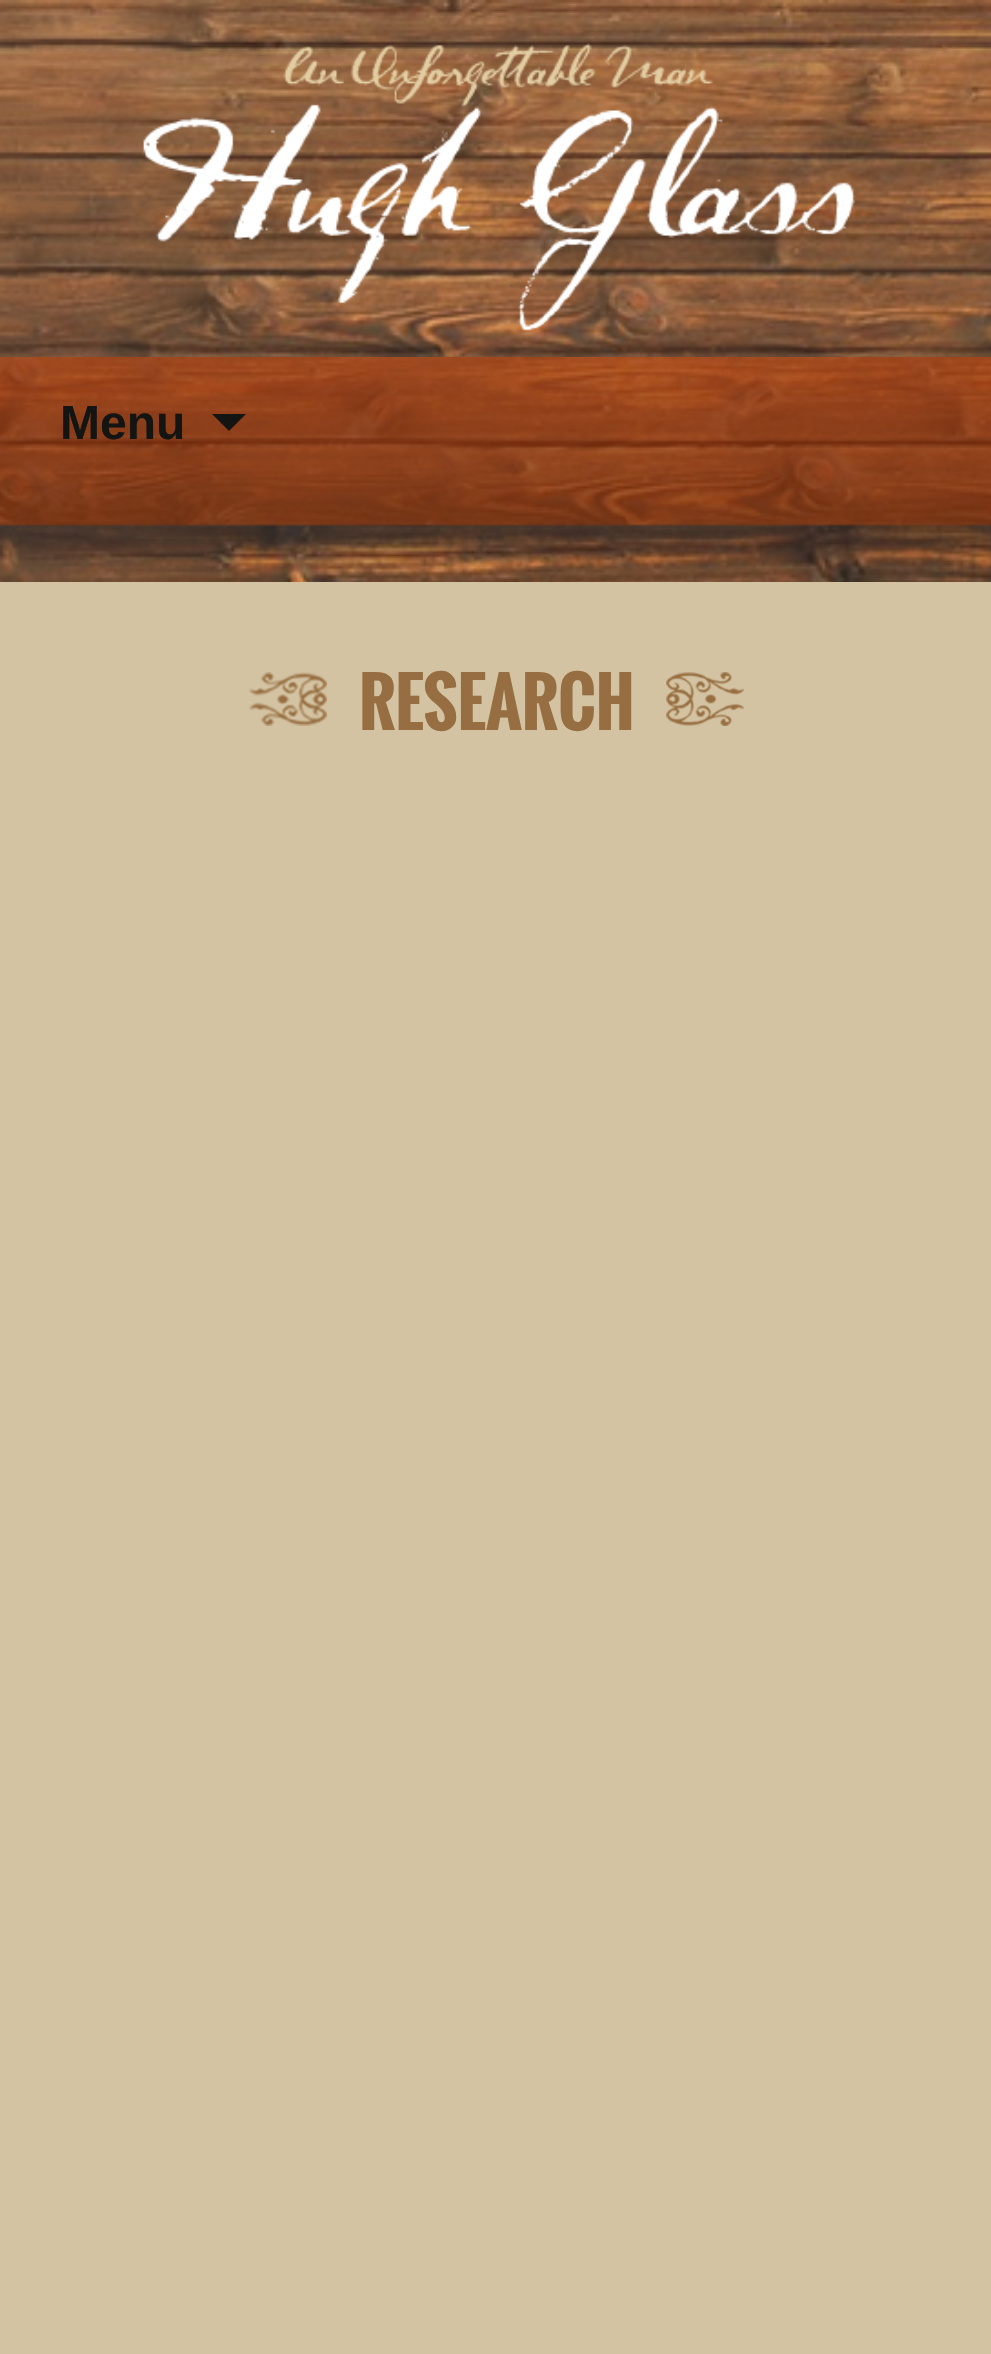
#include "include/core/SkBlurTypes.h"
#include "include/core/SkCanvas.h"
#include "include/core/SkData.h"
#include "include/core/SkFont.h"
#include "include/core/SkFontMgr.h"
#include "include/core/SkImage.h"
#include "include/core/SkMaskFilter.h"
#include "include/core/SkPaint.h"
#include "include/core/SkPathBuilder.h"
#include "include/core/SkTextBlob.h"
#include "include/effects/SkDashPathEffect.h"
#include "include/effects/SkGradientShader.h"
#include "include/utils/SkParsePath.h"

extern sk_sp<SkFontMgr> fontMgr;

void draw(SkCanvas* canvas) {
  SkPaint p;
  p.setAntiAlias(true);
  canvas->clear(SK_ColorWHITE);
  canvas->drawImageRect(SkImages::DeferredFromEncodedData(SkData::MakeFromFileName("images/1.png")), SkRect::MakeLTRB(0, 0, 991, 582), SkSamplingOptions());
  canvas->drawImageRect(SkImages::DeferredFromEncodedData(SkData::MakeFromFileName("images/2.png")), SkRect::MakeLTRB(143, 43, 856, 331), SkSamplingOptions());
  canvas->drawImageRect(SkImages::DeferredFromEncodedData(SkData::MakeFromFileName("images/3.png")), SkRect::MakeLTRB(0, 357, 991, 567), SkSamplingOptions());
  p.setColor(SkColorSetRGB(20, 20, 18));
  canvas->drawPath(SkPathBuilder().moveTo(212, 414).lineTo(229, 431).lineTo(246, 414).close().detach(), p);
  p.setColor(SkColorSetRGB(211, 195, 162));
  canvas->drawRect(SkRect::MakeLTRB(0, 582, 991, 2354), p);
  canvas->drawImageRect(SkImages::DeferredFromEncodedData(SkData::MakeFromFileName("images/4.png")), SkRect::MakeLTRB(249, 672, 327, 726), SkSamplingOptions());
  canvas->drawImageRect(SkImages::DeferredFromEncodedData(SkData::MakeFromFileName("images/5.png")), SkRect::MakeLTRB(666, 672, 744, 726), SkSamplingOptions());
  SkFont font1(fontMgr->matchFamilyStyle("Liberation Sans", SkFontStyle::Bold()), 48);
  font1.setSubpixel(true);
  p.setColor(SkColorSetRGB(20, 20, 18));
  canvas->drawString("Menu", 60, 439, font1, p);
  SkFont font2(fontMgr->matchFamilyStyle("Oswald", SkFontStyle::Bold()), 66);
  font2.setSubpixel(true);
  p.setColor(SkColorSetRGB(151, 110, 65));
  canvas->drawString("RESEARCH", 359, 730, font2, p);
}
